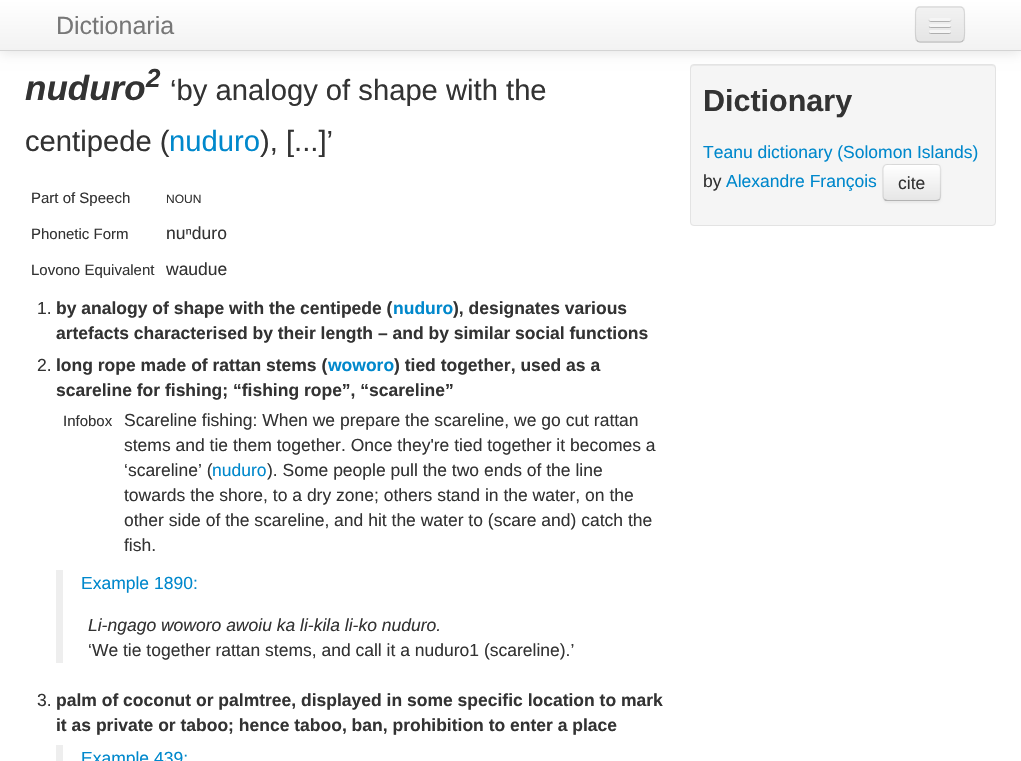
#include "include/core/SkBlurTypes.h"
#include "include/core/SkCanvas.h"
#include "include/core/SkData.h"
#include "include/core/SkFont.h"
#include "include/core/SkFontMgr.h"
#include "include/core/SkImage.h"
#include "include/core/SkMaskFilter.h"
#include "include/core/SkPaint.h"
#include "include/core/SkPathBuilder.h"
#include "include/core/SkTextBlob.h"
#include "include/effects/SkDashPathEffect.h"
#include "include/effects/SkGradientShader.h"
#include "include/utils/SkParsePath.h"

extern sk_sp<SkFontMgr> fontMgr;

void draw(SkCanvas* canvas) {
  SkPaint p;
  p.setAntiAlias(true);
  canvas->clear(SK_ColorWHITE);
  p.setColor(SkColorSetARGB(26, 0, 0, 0));
  p.setMaskFilter(SkMaskFilter::MakeBlur(kNormal_SkBlurStyle, 6));
  canvas->drawRect(SkRect::MakeLTRB(0, 1, 1021, 53), p);
  p.setMaskFilter(nullptr);
  {
    const SkColor colors[] = {SK_ColorWHITE, SkColorSetRGB(242, 242, 242)};
    const float stops[] = {0, 1};
    const SkPoint ends[] = {{511, 0}, {511, 50}};
    p.setShader(SkGradientShader::MakeLinear(ends, colors, stops, 2, SkTileMode::kClamp));
    p.setAlpha(255);
  }
  canvas->drawRect(SkRect::MakeLTRB(0, 0, 1021, 50), p);
  p.setShader(nullptr);
  p.setColor(SkColorSetRGB(212, 212, 212));
  canvas->drawRect(SkRect::MakeLTRB(0, 50, 1021, 51), p);
  p.setColor(SkColorSetRGB(237, 237, 237));
  canvas->drawRoundRect(SkRect::MakeLTRB(915, 6, 965, 43), 5, 5, p);
  canvas->save();
  canvas->clipPath(SkPathBuilder().moveTo(920, 6).lineTo(960, 6).cubicTo(963, 6, 965, 8, 965, 11).lineTo(965, 38).cubicTo(965, 41, 963, 43, 960, 43).lineTo(920, 43).cubicTo(917, 43, 915, 41, 915, 38).lineTo(915, 11).cubicTo(915, 8, 917, 6, 920, 6).close().detach(), true);
  {
    const SkColor colors[] = {SkColorSetRGB(242, 242, 242), SkColorSetRGB(229, 229, 229)};
    const float stops[] = {0, 1};
    const SkPoint ends[] = {{940, 7.5f}, {940, 41}};
    p.setShader(SkGradientShader::MakeLinear(ends, colors, stops, 2, SkTileMode::kClamp));
    p.setAlpha(255);
  }
  canvas->drawRect(SkRect::MakeLTRB(915, 8, 965, 41), p);
  canvas->restore();
  p.setStyle(SkPaint::kStroke_Style);
  p.setStrokeWidth(1.2f);
  p.setShader(nullptr);
  p.setColor(SkColorSetARGB(64, 0, 0, 0));
  canvas->drawPath(SkPathBuilder().moveTo(963, 40.5f).cubicTo(962.5f, 41.5f, 961, 42, 960, 42).lineTo(920, 42).cubicTo(919, 42, 917.5f, 41.5f, 917, 40.5f).detach(), p);
  p.setColor(SkColorSetARGB(26, 0, 0, 0));
  canvas->drawPath(SkPathBuilder().moveTo(917, 40.5f).cubicTo(914.5f, 38, 915.5f, 27.5f, 915.5f, 24.5f).lineTo(915.5f, 15.5f).cubicTo(915.5f, 12.5f, 915, 8, 919, 7).lineTo(961, 7).cubicTo(965, 8, 964.5f, 12.5f, 964.5f, 15.5f).lineTo(964.5f, 24.5f).cubicTo(964.5f, 27.5f, 965.5f, 38, 963, 40.5f).detach(), p);
  p.setStyle(SkPaint::kFill_Style);
  p.setColor(SkColorSetRGB(178, 178, 178));
  canvas->drawPath(SkPathBuilder().moveTo(929, 19.5f).cubicTo(927.5f, 22.5f, 933, 22, 933.5f, 22).lineTo(946.5f, 22).cubicTo(947, 22, 952.5f, 22.5f, 951, 19.5f).cubicTo(950, 20, 930, 20, 929, 19.5f).close().detach(), p);
  p.setColor(SkColorSetRGB(245, 245, 245));
  canvas->drawRoundRect(SkRect::MakeLTRB(929, 18, 951, 21), 1.5f, 1.5f, p);
  p.setColor(SkColorSetRGB(176, 176, 176));
  canvas->drawPath(SkPathBuilder().moveTo(929, 26).cubicTo(928, 28.5f, 933, 28, 933.5f, 28).lineTo(946.5f, 28).cubicTo(947, 28, 952, 28.5f, 951, 26).cubicTo(950, 26.5f, 930, 26.5f, 929, 26).close().detach(), p);
  p.setColor(SkColorSetRGB(245, 245, 245));
  canvas->drawRoundRect(SkRect::MakeLTRB(929, 24, 951, 27), 1.5f, 1.5f, p);
  p.setColor(SkColorSetRGB(174, 174, 174));
  canvas->drawPath(SkPathBuilder().moveTo(929, 32).cubicTo(928.5f, 34.5f, 933, 34, 933.5f, 34).lineTo(946.5f, 34).cubicTo(947, 34, 951.5f, 34.5f, 951, 32).cubicTo(950, 33, 930, 33, 929, 32).close().detach(), p);
  p.setColor(SkColorSetRGB(245, 245, 245));
  canvas->drawRoundRect(SkRect::MakeLTRB(929, 30, 951, 33), 1.5f, 1.5f, p);
  p.setColor(SkColorSetRGB(238, 238, 238));
  canvas->drawRect(SkRect::MakeLTRB(56, 570, 63, 663), p);
  canvas->drawRect(SkRect::MakeLTRB(56, 745, 63, 761), p);
  p.setColor(SkColorSetRGB(245, 245, 245));
  canvas->drawRoundRect(SkRect::MakeLTRB(690, 64, 996, 226), 4, 4, p);
  p.setColor(SkColorSetRGB(233, 233, 233));
  canvas->drawPath(SkPathBuilder().moveTo(694, 66).lineTo(992, 66).cubicTo(994, 66, 995, 67, 995, 69).lineTo(995, 68).cubicTo(995, 66, 994, 65, 992, 65).lineTo(694, 65).cubicTo(692, 65, 691, 66, 691, 68).lineTo(691, 69).cubicTo(691, 67, 692, 66, 694, 66).close().detach(), p);
  p.setStyle(SkPaint::kStroke_Style);
  p.setStrokeWidth(1);
  p.setColor(SkColorSetRGB(227, 227, 227));
  canvas->drawRoundRect(SkRect::MakeLTRB(690.5f, 64.5f, 995.5f, 225.5f), 3.5f, 3.5f, p);
  p.setStyle(SkPaint::kFill_Style);
  p.setColor(SkColorSetARGB(13, 0, 0, 0));
  p.setMaskFilter(SkMaskFilter::MakeBlur(kNormal_SkBlurStyle, 1));
  canvas->drawRoundRect(SkRect::MakeLTRB(883, 165, 941, 203), 5, 5, p);
  p.setMaskFilter(nullptr);
  canvas->save();
  canvas->clipPath(SkPathBuilder().moveTo(888, 164).lineTo(936, 164).cubicTo(939, 164, 941, 166, 941, 169).lineTo(941, 196).cubicTo(941, 199, 939, 201, 936, 201).lineTo(888, 201).cubicTo(885, 201, 883, 199, 883, 196).lineTo(883, 169).cubicTo(883, 166, 885, 164, 888, 164).close().detach(), true);
  {
    const SkColor colors[] = {SK_ColorWHITE, SkColorSetRGB(230, 230, 230)};
    const float stops[] = {0, 1};
    const SkPoint ends[] = {{912, 165}, {912, 200}};
    p.setShader(SkGradientShader::MakeLinear(ends, colors, stops, 2, SkTileMode::kClamp));
    p.setAlpha(255);
  }
  canvas->drawRect(SkRect::MakeLTRB(883, 165, 941, 200), p);
  canvas->restore();
  p.setShader(nullptr);
  p.setColor(SK_ColorWHITE);
  canvas->drawPath(SkPathBuilder().moveTo(888, 166).lineTo(936, 166).cubicTo(938, 166, 940, 168, 940, 170).cubicTo(940, 163, 933, 165, 928, 165).lineTo(896, 165).cubicTo(891, 165, 884, 163, 884, 170).cubicTo(884, 168, 885, 166, 888, 166).close().detach(), p);
  p.setStyle(SkPaint::kStroke_Style);
  p.setStrokeWidth(1.2f);
  p.setColor(SkColorSetRGB(179, 179, 179));
  canvas->drawPath(SkPathBuilder().moveTo(939.5f, 199.5f).cubicTo(938.5f, 200, 937.5f, 200.5f, 936, 200.5f).lineTo(887.5f, 200.5f).cubicTo(886.5f, 200.5f, 885, 200, 884.5f, 199.5f).detach(), p);
  p.setColor(SkColorSetARGB(26, 0, 0, 0));
  canvas->drawPath(SkPathBuilder().moveTo(884.5f, 199.5f).cubicTo(883.5f, 198.5f, 883, 197.5f, 883, 196).lineTo(883, 169).cubicTo(883, 167.5f, 883.5f, 166.5f, 884.5f, 165.5f).cubicTo(885, 165, 886.5f, 164.5f, 887.5f, 164.5f).lineTo(936, 164.5f).cubicTo(937.5f, 164.5f, 938.5f, 165, 939.5f, 165.5f).cubicTo(940, 166.5f, 940.5f, 167.5f, 940.5f, 169).lineTo(940.5f, 196).cubicTo(940.5f, 197.5f, 940, 198.5f, 939.5f, 199.5f).detach(), p);
  SkFont font1(fontMgr->matchFamilyStyle("Liberation Sans", SkFontStyle::Normal()), 25);
  font1.setSubpixel(true);
  p.setStyle(SkPaint::kFill_Style);
  p.setColor(SkColorSetRGB(119, 119, 119));
  canvas->drawString("Dictionaria", 56, 34, font1, p);
  SkFont font2(fontMgr->matchFamilyStyle("Liberation Sans", SkFontStyle::BoldItalic()), 35);
  font2.setSubpixel(true);
  p.setColor(SkColorSetRGB(51, 51, 51));
  canvas->drawString("nuduro", 25, 100, font2, p);
  SkFont font3(fontMgr->matchFamilyStyle("Liberation Sans", SkFontStyle::BoldItalic()), 26);
  font3.setSubpixel(true);
  canvas->drawString("2", 146, 87, font3, p);
  SkFont font4(fontMgr->matchFamilyStyle("Liberation Sans", SkFontStyle::Normal()), 29.2f);
  font4.setSubpixel(true);
  canvas->drawString("‘by analogy of shape with the", 170, 100, font4, p);
  canvas->drawString("centipede (", 25, 151, font4, p);
  p.setColor(SkColorSetRGB(0, 136, 204));
  canvas->drawString("nuduro", 169, 151, font4, p);
  p.setColor(SkColorSetRGB(51, 51, 51));
  canvas->drawString("), [...]’", 260, 151, font4, p);
  SkFont font5(fontMgr->matchFamilyStyle("Liberation Sans", SkFontStyle::Normal()), 15);
  font5.setSubpixel(true);
  canvas->drawString("Part of Speech", 31, 203, font5, p);
  SkFont font6(fontMgr->matchFamilyStyle("Liberation Sans", SkFontStyle::Normal()), 12);
  font6.setSubpixel(true);
  canvas->drawString("NOUN", 166, 203, font6, p);
  canvas->drawString("Phonetic Form", 31, 239, font5, p);
  SkFont font7(fontMgr->matchFamilyStyle("Liberation Sans", SkFontStyle::Normal()), 17.5f);
  font7.setSubpixel(true);
  canvas->drawString("nuⁿduro", 166, 239, font7, p);
  canvas->drawString("Lovono Equivalent", 31, 275, font5, p);
  canvas->drawString("waudue", 166, 275, font7, p);
  canvas->drawString("1.", 37, 314, font7, p);
  SkFont font8(fontMgr->matchFamilyStyle("Liberation Sans", SkFontStyle::Bold()), 17.5f);
  font8.setSubpixel(true);
  canvas->drawString("by analogy of shape with the centipede (", 56, 314, font8, p);
  p.setColor(SkColorSetRGB(0, 136, 204));
  canvas->drawString("nuduro", 393, 314, font8, p);
  p.setColor(SkColorSetRGB(51, 51, 51));
  canvas->drawString("), designates various", 453, 314, font8, p);
  canvas->drawString("artefacts characterised by their length – and by similar social functions", 56, 339, font8, p);
  canvas->drawString("2.", 37, 371, font7, p);
  canvas->drawString("long rope made of rattan stems (", 56, 371, font8, p);
  p.setColor(SkColorSetRGB(0, 136, 204));
  canvas->drawString("woworo", 328, 371, font8, p);
  p.setColor(SkColorSetRGB(51, 51, 51));
  canvas->drawString(") tied together, used as a", 394, 371, font8, p);
  canvas->drawString("scareline for fishing; “fishing rope”, “scareline”", 56, 396, font8, p);
  canvas->drawString("Infobox", 63, 426, font5, p);
  canvas->drawString("Scareline fishing: When we prepare the scareline, we go cut rattan", 124, 426, font7, p);
  canvas->drawString("stems and tie them together. Once they're tied together it becomes a", 124, 451, font7, p);
  canvas->drawString("‘scareline’ (", 124, 476, font7, p);
  p.setColor(SkColorSetRGB(0, 136, 204));
  canvas->drawString("nuduro", 212, 476, font7, p);
  p.setColor(SkColorSetRGB(51, 51, 51));
  canvas->drawString("). Some people pull the two ends of the line", 267, 476, font7, p);
  canvas->drawString("towards the shore, to a dry zone; others stand in the water, on the", 124, 501, font7, p);
  canvas->drawString("other side of the scareline, and hit the water to (scare and) catch the", 124, 526, font7, p);
  canvas->drawString("fish.", 124, 551, font7, p);
  p.setColor(SkColorSetRGB(0, 136, 204));
  canvas->drawString("Example 1890:", 81, 589, font7, p);
  SkFont font9(fontMgr->matchFamilyStyle("Liberation Sans", SkFontStyle::Italic()), 17.5f);
  font9.setSubpixel(true);
  p.setColor(SkColorSetRGB(51, 51, 51));
  canvas->drawString("Li-ngago woworo awoiu ka li-kila li-ko nuduro.", 88, 631, font9, p);
  canvas->drawString("‘We tie together rattan stems, and call it a nuduro1 (scareline).’", 88, 656, font7, p);
  canvas->drawString("3.", 37, 706, font7, p);
  canvas->drawString("palm of coconut or palmtree, displayed in some specific location to mark", 56, 706, font8, p);
  canvas->drawString("it as private or taboo; hence taboo, ban, prohibition to enter a place", 56, 731, font8, p);
  p.setColor(SkColorSetRGB(0, 136, 204));
  canvas->drawString("Example 439:", 81, 764, font7, p);
  SkFont font10(fontMgr->matchFamilyStyle("Liberation Sans", SkFontStyle::Bold()), 30.5f);
  font10.setSubpixel(true);
  p.setColor(SkColorSetRGB(51, 51, 51));
  canvas->drawString("Dictionary", 703, 111, font10, p);
  p.setColor(SkColorSetRGB(0, 136, 204));
  canvas->drawString("Teanu dictionary (Solomon Islands)", 703, 158, font7, p);
  p.setColor(SkColorSetRGB(51, 51, 51));
  canvas->drawString("by", 703, 187, font7, p);
  p.setColor(SkColorSetRGB(0, 136, 204));
  canvas->drawString("Alexandre François", 726, 187, font7, p);
  p.setColor(SkColorSetRGB(51, 51, 51));
  canvas->drawString("cite", 898, 189, font7, p);
}
